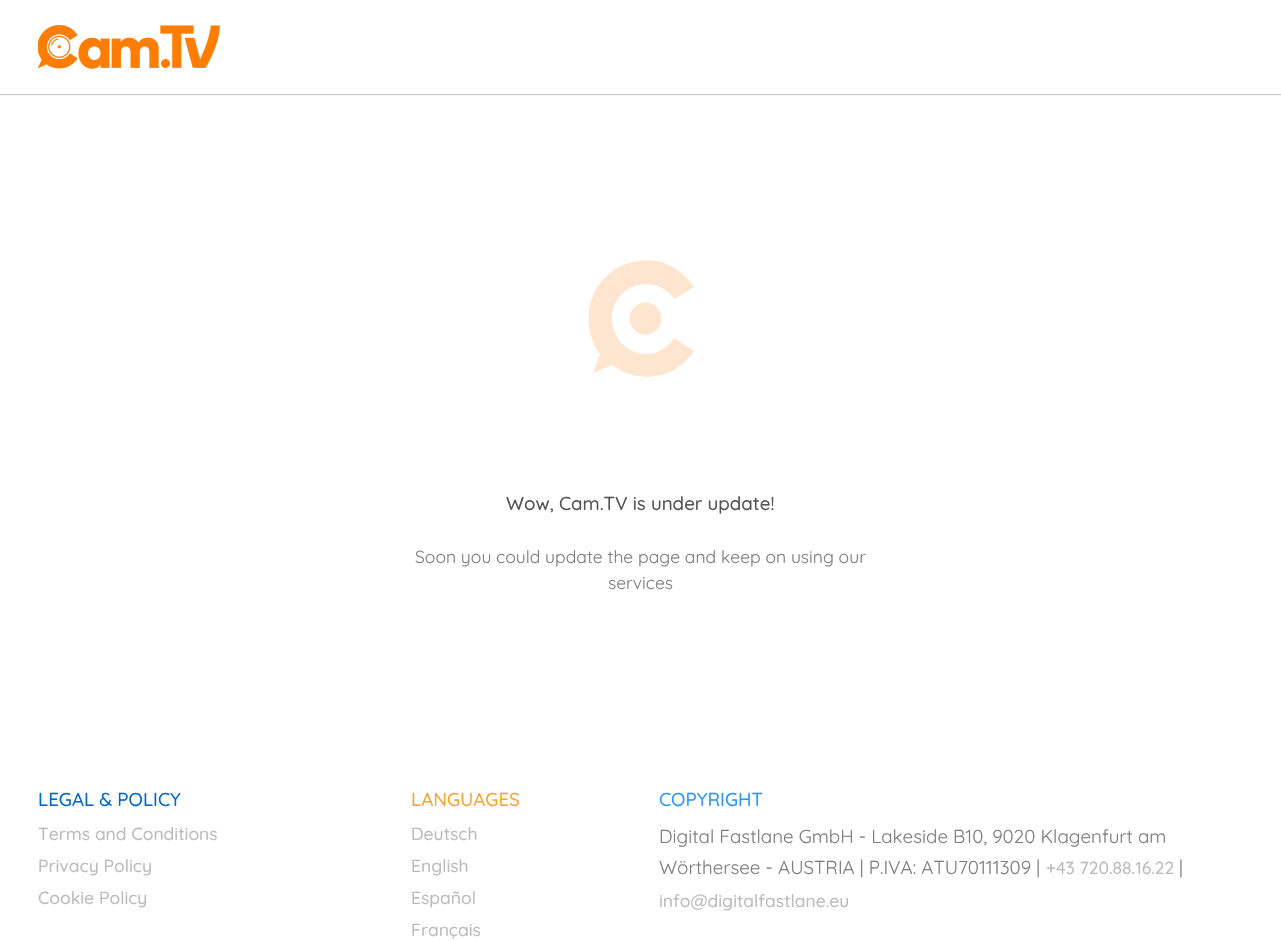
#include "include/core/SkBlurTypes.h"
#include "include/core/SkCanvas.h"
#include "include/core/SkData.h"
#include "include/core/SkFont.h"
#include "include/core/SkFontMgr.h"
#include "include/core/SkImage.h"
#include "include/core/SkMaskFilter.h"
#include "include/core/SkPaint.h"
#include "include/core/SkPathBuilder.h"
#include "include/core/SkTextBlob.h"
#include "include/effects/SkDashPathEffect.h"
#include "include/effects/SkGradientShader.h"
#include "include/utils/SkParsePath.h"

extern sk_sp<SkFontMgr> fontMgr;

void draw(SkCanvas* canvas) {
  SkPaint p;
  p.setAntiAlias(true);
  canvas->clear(SK_ColorWHITE);
  p.setColor(SkColorSetARGB(64, 45, 45, 45));
  p.setMaskFilter(SkMaskFilter::MakeBlur(kNormal_SkBlurStyle, 0.5f));
  canvas->drawRect(SkRect::MakeLTRB(0, 1, 1281, 95), p);
  p.setMaskFilter(nullptr);
  p.setColor(SK_ColorWHITE);
  canvas->drawRect(SkRect::MakeLTRB(0, 0, 1281, 94), p);
  canvas->drawImageRect(SkImages::DeferredFromEncodedData(SkData::MakeFromFileName("images/1.png")), SkRect::MakeLTRB(38, 25, 220, 69), SkSamplingOptions());
  p.setColor(SkColorSetRGB(253, 229, 208));
  canvas->drawPath(SkPathBuilder().moveTo(674, 299).lineTo(694, 287).cubicTo(687, 277, 678, 269, 667, 264).cubicTo(657, 260, 645, 259, 634, 262).cubicTo(592, 270, 576, 320, 600, 354).lineTo(593, 373).lineTo(612, 365).cubicTo(638, 385, 676, 379, 694, 351).lineTo(674, 338).cubicTo(668, 348, 657, 354, 646, 354).cubicTo(627, 354, 612, 338, 612, 319).cubicTo(612, 299, 627, 284, 646, 284).cubicTo(658, 284, 668, 290, 674, 299).close().detach(), p);
  canvas->drawCircle(645.5f, 318.5f, 16, p);
  SkFont font1(fontMgr->matchFamilyStyle("Quicksand", SkFontStyle(500, SkFontStyle::kNormal_Width, SkFontStyle::kUpright_Slant)), 18.75f);
  font1.setSubpixel(true);
  p.setColor(SkColorSetRGB(84, 84, 84));
  canvas->drawString("Wow, Cam.TV is under update!", 506, 510, font1, p);
  SkFont font2(fontMgr->matchFamilyStyle("Quicksand", SkFontStyle::Normal()), 17.5f);
  font2.setSubpixel(true);
  p.setColor(SkColorSetRGB(126, 126, 126));
  canvas->drawString("Soon you could update the page and keep on using our", 415, 563, font2, p);
  canvas->drawString("services", 608, 589, font2, p);
  p.setColor(SkColorSetRGB(0, 102, 204));
  canvas->drawString("LEGAL & POLICY", 38, 806, font1, p);
  SkFont font3(fontMgr->matchFamilyStyle("Quicksand", SkFontStyle(500, SkFontStyle::kNormal_Width, SkFontStyle::kUpright_Slant)), 17.5f);
  font3.setSubpixel(true);
  p.setColor(SkColorSetRGB(187, 187, 187));
  canvas->drawString("Terms and Conditions", 38, 840, font3, p);
  canvas->drawString("Privacy Policy", 38, 872, font3, p);
  canvas->drawString("Cookie Policy", 38, 904, font3, p);
  p.setColor(SkColorSetRGB(245, 166, 54));
  canvas->drawString("LANGUAGES", 411, 806, font1, p);
  p.setColor(SkColorSetRGB(187, 187, 187));
  canvas->drawString("Deutsch", 411, 840, font3, p);
  canvas->drawString("English", 411, 872, font3, p);
  canvas->drawString("Español", 411, 904, font3, p);
  canvas->drawString("Français", 411, 936, font3, p);
  p.setColor(SkColorSetRGB(41, 151, 255));
  canvas->drawString("COPYRIGHT", 659, 806, font1, p);
  SkFont font4(fontMgr->matchFamilyStyle("Quicksand", SkFontStyle::Normal()), 18.75f);
  font4.setSubpixel(true);
  p.setColor(SkColorSetRGB(126, 126, 126));
  canvas->drawString("Digital Fastlane GmbH - Lakeside B10, 9020 Klagenfurt am", 659, 843, font4, p);
  canvas->drawString("Wörthersee - AUSTRIA | P.IVA: ATU70111309 |", 659, 874, font4, p);
  p.setColor(SkColorSetRGB(187, 187, 187));
  canvas->drawString("+43 720.88.16.22", 1046, 874, font3, p);
  p.setColor(SkColorSetRGB(126, 126, 126));
  canvas->drawString("|", 1179, 874, font4, p);
  p.setColor(SkColorSetRGB(187, 187, 187));
  canvas->drawString("info@digitalfastlane.eu", 659, 907, font3, p);
}
